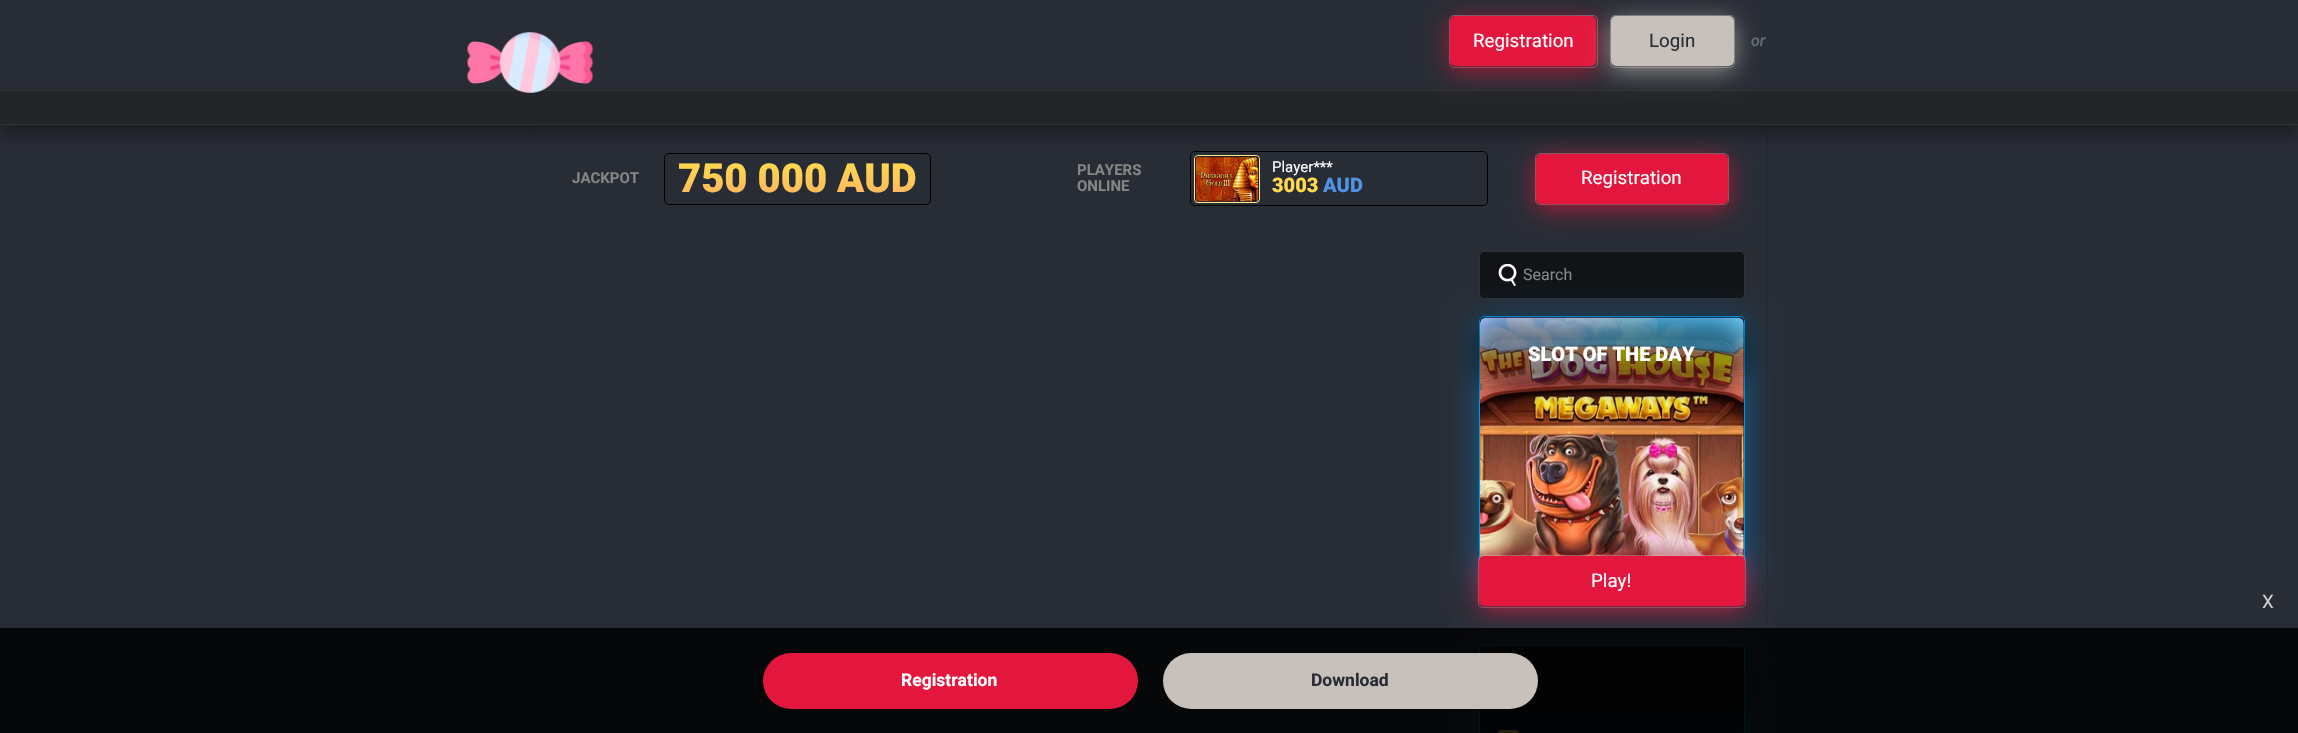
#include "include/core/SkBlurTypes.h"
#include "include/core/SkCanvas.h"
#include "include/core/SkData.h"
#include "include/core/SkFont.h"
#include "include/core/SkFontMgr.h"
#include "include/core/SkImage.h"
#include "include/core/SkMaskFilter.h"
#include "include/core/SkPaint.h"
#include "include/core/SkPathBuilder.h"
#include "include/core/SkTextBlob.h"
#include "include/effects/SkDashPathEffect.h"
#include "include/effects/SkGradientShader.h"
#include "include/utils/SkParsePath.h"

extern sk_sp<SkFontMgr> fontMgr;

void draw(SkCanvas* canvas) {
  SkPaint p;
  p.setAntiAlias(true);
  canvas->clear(SkColorSetRGB(40, 44, 53));
  canvas->drawImageRect(SkImages::DeferredFromEncodedData(SkData::MakeFromFileName("images/2.png")), SkRect::MakeLTRB(533, 125, 1767, 733), SkSamplingOptions());
  p.setStyle(SkPaint::kStroke_Style);
  p.setStrokeWidth(1);
  p.setColor(SkColorSetRGB(35, 40, 49));
  canvas->drawRoundRect(SkRect::MakeLTRB(533.5f, 125.5f, 1767.5f, 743.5f), 9.5f, 9.5f, p);
  p.setColor(SK_ColorBLACK);
  canvas->drawRoundRect(SkRect::MakeLTRB(664.5f, 153.5f, 930.5f, 204.5f), 4.5f, 4.5f, p);
  canvas->drawRoundRect(SkRect::MakeLTRB(1190.5f, 151.5f, 1487.5f, 205.5f), 4.5f, 4.5f, p);
  p.setColor(SkColorSetRGB(255, 236, 139));
  canvas->drawRoundRect(SkRect::MakeLTRB(1194.5f, 155.5f, 1259.5f, 202.5f), 3.5f, 3.5f, p);
  canvas->drawImageRect(SkImages::DeferredFromEncodedData(SkData::MakeFromFileName("images/3.png")), SkRect::MakeLTRB(1195, 156, 1259, 202), SkSamplingOptions());
  p.setColor(SkColorSetRGB(105, 107, 114));
  canvas->drawRoundRect(SkRect::MakeLTRB(1535.5f, 153.5f, 1728.5f, 204.5f), 4.5f, 4.5f, p);
  p.setStyle(SkPaint::kFill_Style);
  p.setColor(SkColorSetRGB(227, 23, 61));
  canvas->drawRoundRect(SkRect::MakeLTRB(1536, 154, 1728, 204), 5, 5, p);
  p.setColor(SkColorSetARGB(77, 0, 0, 0));
  p.setMaskFilter(SkMaskFilter::MakeBlur(kNormal_SkBlurStyle, 7.5f));
  canvas->drawRect(SkRect::MakeLTRB(0, 100, 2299, 135), p);
  p.setMaskFilter(nullptr);
  canvas->save();
  canvas->clipPath(SkPathBuilder(SkPathFillType::kEvenOdd).moveTo(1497, 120).lineTo(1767, 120).lineTo(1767, 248).lineTo(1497, 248).close().moveTo(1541, 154).lineTo(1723, 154).cubicTo(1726, 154, 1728, 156, 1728, 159).lineTo(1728, 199).cubicTo(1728, 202, 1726, 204, 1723, 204).lineTo(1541, 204).cubicTo(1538, 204, 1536, 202, 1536, 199).lineTo(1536, 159).cubicTo(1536, 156, 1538, 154, 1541, 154).close().detach(), true);
  p.setColor(SkColorSetARGB(179, 227, 23, 61));
  p.setMaskFilter(SkMaskFilter::MakeBlur(kNormal_SkBlurStyle, 12.5f));
  canvas->drawRoundRect(SkRect::MakeLTRB(1536, 159, 1728, 209), 5, 5, p);
  p.setMaskFilter(nullptr);
  canvas->restore();
  p.setColor(SkColorSetRGB(35, 37, 40));
  canvas->drawRect(SkRect::MakeLTRB(0, 91, 2298, 124), p);
  p.setColor(SkColorSetRGB(48, 50, 53));
  canvas->drawRect(SkRect::MakeLTRB(0, 90, 2298, 91), p);
  canvas->drawImageRect(SkImages::DeferredFromEncodedData(SkData::MakeFromFileName("images/1.png")), SkRect::MakeLTRB(467, 32, 593, 93), SkSamplingOptions());
  p.setStyle(SkPaint::kStroke_Style);
  p.setColor(SkColorSetRGB(105, 107, 114));
  canvas->drawRoundRect(SkRect::MakeLTRB(1449.5f, 15.5f, 1597.5f, 67.5f), 4.5f, 4.5f, p);
  p.setStyle(SkPaint::kFill_Style);
  p.setColor(SkColorSetRGB(227, 23, 61));
  canvas->drawRoundRect(SkRect::MakeLTRB(1450, 16, 1596, 66), 5, 5, p);
  canvas->save();
  canvas->clipPath(SkPathBuilder(SkPathFillType::kEvenOdd).moveTo(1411, 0).lineTo(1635, 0).lineTo(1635, 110).lineTo(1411, 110).close().moveTo(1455, 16).lineTo(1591, 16).cubicTo(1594, 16, 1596, 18, 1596, 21).lineTo(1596, 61).cubicTo(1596, 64, 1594, 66, 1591, 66).lineTo(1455, 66).cubicTo(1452, 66, 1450, 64, 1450, 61).lineTo(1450, 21).cubicTo(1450, 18, 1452, 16, 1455, 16).close().detach(), true);
  p.setColor(SkColorSetARGB(179, 227, 23, 61));
  p.setMaskFilter(SkMaskFilter::MakeBlur(kNormal_SkBlurStyle, 12.5f));
  canvas->drawRoundRect(SkRect::MakeLTRB(1450, 21, 1596, 71), 5, 5, p);
  p.setMaskFilter(nullptr);
  canvas->restore();
  p.setStyle(SkPaint::kStroke_Style);
  p.setColor(SkColorSetARGB(77, 255, 255, 255));
  canvas->drawRoundRect(SkRect::MakeLTRB(1610.5f, 15.5f, 1734.5f, 67.5f), 4.5f, 4.5f, p);
  p.setStyle(SkPaint::kFill_Style);
  p.setColor(SkColorSetRGB(200, 192, 187));
  canvas->drawRoundRect(SkRect::MakeLTRB(1611, 16, 1734, 66), 5, 5, p);
  canvas->save();
  canvas->clipPath(SkPathBuilder(SkPathFillType::kEvenOdd).moveTo(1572, 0).lineTo(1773, 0).lineTo(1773, 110).lineTo(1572, 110).close().moveTo(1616, 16).lineTo(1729, 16).cubicTo(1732, 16, 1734, 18, 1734, 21).lineTo(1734, 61).cubicTo(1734, 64, 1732, 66, 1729, 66).lineTo(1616, 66).cubicTo(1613, 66, 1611, 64, 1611, 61).lineTo(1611, 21).cubicTo(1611, 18, 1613, 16, 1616, 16).close().detach(), true);
  p.setColor(SkColorSetARGB(179, 200, 192, 187));
  p.setMaskFilter(SkMaskFilter::MakeBlur(kNormal_SkBlurStyle, 12.5f));
  canvas->drawRoundRect(SkRect::MakeLTRB(1611, 21, 1734, 71), 5, 5, p);
  p.setMaskFilter(nullptr);
  canvas->restore();
  p.setColor(SkColorSetRGB(48, 50, 53));
  canvas->drawRect(SkRect::MakeLTRB(0, 124, 2298, 125), p);
  p.setColor(SkColorSetRGB(17, 19, 22));
  canvas->drawRoundRect(SkRect::MakeLTRB(1479.5f, 251.5f, 1744.5f, 298.5f), 4.5f, 4.5f, p);
  p.setStyle(SkPaint::kStroke_Style);
  p.setColor(SkColorSetRGB(48, 50, 52));
  canvas->drawRoundRect(SkRect::MakeLTRB(1479.5f, 251.5f, 1744.5f, 298.5f), 4.5f, 4.5f, p);
  canvas->drawImageRect(SkImages::DeferredFromEncodedData(SkData::MakeFromFileName("images/4.png")), SkRect::MakeLTRB(1498, 264, 1517, 286), SkSamplingOptions());
  p.setStyle(SkPaint::kFill_Style);
  p.setColor(SkColorSetARGB(128, 0, 151, 236));
  p.setMaskFilter(SkMaskFilter::MakeBlur(kNormal_SkBlurStyle, 17.5f));
  canvas->drawRoundRect(SkRect::MakeLTRB(1479, 321, 1745, 588), 5, 5, p);
  p.setMaskFilter(nullptr);
  canvas->save();
  canvas->clipPath(SkPathBuilder().moveTo(1484, 316).lineTo(1740, 316).cubicTo(1743, 316, 1745, 318, 1745, 321).lineTo(1745, 578).cubicTo(1745, 581, 1743, 583, 1740, 583).lineTo(1484, 583).cubicTo(1481, 583, 1479, 581, 1479, 578).lineTo(1479, 321).cubicTo(1479, 318, 1481, 316, 1484, 316).close().detach(), true);
  {
    const SkColor colors[] = {SkColorSetRGB(17, 19, 22), SkColorSetRGB(0, 28, 69)};
    const float stops[] = {0, 1};
    const SkPoint ends[] = {{1612, 54}, {1612, 318}};
    p.setShader(SkGradientShader::MakeLinear(ends, colors, stops, 2, SkTileMode::kClamp));
    p.setAlpha(255);
  }
  canvas->drawRect(SkRect::MakeLTRB(1479, 316, 1745, 318), p);
  {
    const SkColor colors[] = {SkColorSetRGB(17, 19, 22), SkColorSetRGB(0, 28, 69)};
    const float stops[] = {0, 1};
    const SkPoint ends[] = {{1612, 318}, {1612, 581}};
    p.setShader(SkGradientShader::MakeLinear(ends, colors, stops, 2, SkTileMode::kClamp));
    p.setAlpha(255);
  }
  canvas->drawRect(SkRect::MakeLTRB(1479, 318, 1745, 558), p);
  canvas->restore();
  p.setStyle(SkPaint::kStroke_Style);
  p.setShader(nullptr);
  p.setColor(SkColorSetRGB(0, 151, 236));
  canvas->drawRoundRect(SkRect::MakeLTRB(1479.5f, 316.5f, 1744.5f, 582.5f), 4.5f, 4.5f, p);
  canvas->drawImageRect(SkImages::DeferredFromEncodedData(SkData::MakeFromFileName("images/5.png")), SkRect::MakeLTRB(1480, 317, 1744, 558), SkSamplingOptions());
  canvas->save();
  canvas->clipPath(SkPathBuilder(SkPathFillType::kEvenOdd).moveTo(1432, 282).lineTo(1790, 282).lineTo(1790, 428).lineTo(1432, 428).close().moveTo(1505, 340).lineTo(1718, 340).cubicTo(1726.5f, 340, 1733, 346.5f, 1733, 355).cubicTo(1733, 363.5f, 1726.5f, 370, 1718, 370).lineTo(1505, 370).cubicTo(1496.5f, 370, 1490, 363.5f, 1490, 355).cubicTo(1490, 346.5f, 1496.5f, 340, 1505, 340).close().detach(), true);
  p.setStyle(SkPaint::kFill_Style);
  p.setColor(SkColorSetARGB(122, 0, 0, 0));
  p.setMaskFilter(SkMaskFilter::MakeBlur(kNormal_SkBlurStyle, 12.5f));
  canvas->drawRoundRect(SkRect::MakeLTRB(1471, 321, 1751, 389), 34, 34, p);
  p.setMaskFilter(nullptr);
  canvas->restore();
  p.setColor(SkColorSetARGB(107, 0, 0, 0));
  canvas->drawRoundRect(SkRect::MakeLTRB(1490, 340, 1733, 370), 15, 15, p);
  p.setColor(SkColorSetARGB(128, 0, 151, 236));
  p.setMaskFilter(SkMaskFilter::MakeBlur(kNormal_SkBlurStyle, 17.5f));
  canvas->drawRoundRect(SkRect::MakeLTRB(1479, 650, 1745, 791), 5, 5, p);
  p.setMaskFilter(nullptr);
  p.setStyle(SkPaint::kStroke_Style);
  p.setColor(SkColorSetARGB(77, 255, 255, 255));
  canvas->drawRoundRect(SkRect::MakeLTRB(1478.5f, 555.5f, 1745.5f, 607.5f), 4.5f, 4.5f, p);
  p.setStyle(SkPaint::kFill_Style);
  p.setColor(SkColorSetRGB(227, 23, 61));
  canvas->drawRoundRect(SkRect::MakeLTRB(1479, 556, 1745, 606), 5, 5, p);
  canvas->save();
  canvas->clipPath(SkPathBuilder().moveTo(1484, 645).lineTo(1740, 645).cubicTo(1743, 645, 1745, 647, 1745, 650).lineTo(1745, 965).cubicTo(1745, 968, 1743, 970, 1740, 970).lineTo(1484, 970).cubicTo(1481, 970, 1479, 968, 1479, 965).lineTo(1479, 650).cubicTo(1479, 647, 1481, 645, 1484, 645).close().detach(), true);
  {
    const SkColor colors[] = {SkColorSetRGB(17, 19, 22), SkColorSetRGB(0, 28, 69)};
    const float stops[] = {0, 1};
    const SkPoint ends[] = {{1612, 646}, {1612, 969}};
    p.setShader(SkGradientShader::MakeLinear(ends, colors, stops, 2, SkTileMode::kClamp));
    p.setAlpha(255);
  }
  canvas->drawRect(SkRect::MakeLTRB(1479, 646, 1745, 733), p);
  canvas->restore();
  p.setStyle(SkPaint::kStroke_Style);
  p.setShader(nullptr);
  p.setColor(SkColorSetRGB(0, 151, 236));
  canvas->drawRoundRect(SkRect::MakeLTRB(1479.5f, 645.5f, 1744.5f, 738.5f), 4.5f, 4.5f, p);
  canvas->save();
  canvas->clipPath(SkPathBuilder(SkPathFillType::kEvenOdd).moveTo(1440, 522).lineTo(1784, 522).lineTo(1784, 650).lineTo(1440, 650).close().moveTo(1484, 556).lineTo(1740, 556).cubicTo(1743, 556, 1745, 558, 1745, 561).lineTo(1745, 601).cubicTo(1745, 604, 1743, 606, 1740, 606).lineTo(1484, 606).cubicTo(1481, 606, 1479, 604, 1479, 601).lineTo(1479, 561).cubicTo(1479, 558, 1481, 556, 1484, 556).close().detach(), true);
  p.setStyle(SkPaint::kFill_Style);
  p.setColor(SkColorSetARGB(179, 227, 23, 61));
  p.setMaskFilter(SkMaskFilter::MakeBlur(kNormal_SkBlurStyle, 12.5f));
  canvas->drawRoundRect(SkRect::MakeLTRB(1479, 561, 1745, 611), 5, 5, p);
  p.setMaskFilter(nullptr);
  canvas->restore();
  canvas->save();
  canvas->clipPath(SkPathBuilder(SkPathFillType::kEvenOdd).moveTo(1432, 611).lineTo(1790, 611).lineTo(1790, 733).lineTo(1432, 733).close().moveTo(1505, 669).lineTo(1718, 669).cubicTo(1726.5f, 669, 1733, 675.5f, 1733, 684).cubicTo(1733, 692.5f, 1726.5f, 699, 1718, 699).lineTo(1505, 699).cubicTo(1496.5f, 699, 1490, 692.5f, 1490, 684).cubicTo(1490, 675.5f, 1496.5f, 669, 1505, 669).close().detach(), true);
  p.setColor(SkColorSetARGB(122, 0, 0, 0));
  p.setMaskFilter(SkMaskFilter::MakeBlur(kNormal_SkBlurStyle, 12.5f));
  canvas->drawRoundRect(SkRect::MakeLTRB(1471, 650, 1751, 718), 34, 34, p);
  p.setMaskFilter(nullptr);
  canvas->restore();
  p.setColor(SkColorSetARGB(107, 0, 0, 0));
  canvas->drawRoundRect(SkRect::MakeLTRB(1490, 669, 1733, 699), 15, 15, p);
  p.setColor(SkColorSetRGB(255, 191, 68));
  canvas->drawRoundRect(SkRect::MakeLTRB(1498, 730, 1519, 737), 4, 4, p);
  p.setStyle(SkPaint::kStroke_Style);
  p.setColor(SkColorSetARGB(128, 255, 255, 255));
  canvas->drawRoundRect(SkRect::MakeLTRB(1498.5f, 730.5f, 1518.5f, 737.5f), 3.5f, 3.5f, p);
  p.setStyle(SkPaint::kFill_Style);
  p.setColor(SkColorSetARGB(217, 0, 0, 0));
  canvas->drawRect(SkRect::MakeLTRB(0, 628, 2298, 733), p);
  p.setColor(SkColorSetRGB(227, 23, 61));
  canvas->drawRoundRect(SkRect::MakeLTRB(763, 653, 1138, 709), 28, 28, p);
  p.setColor(SkColorSetRGB(200, 192, 187));
  canvas->drawRoundRect(SkRect::MakeLTRB(1163, 653, 1538, 709), 28, 28, p);
  SkFont font1(fontMgr->matchFamilyStyle("Roboto", SkFontStyle::Normal()), 18.75f);
  font1.setSubpixel(true);
  p.setColor(SK_ColorWHITE);
  canvas->drawString("Registration", 1473, 47, font1, p);
  p.setColor(SkColorSetRGB(40, 44, 53));
  canvas->drawString("Login", 1649, 47, font1, p);
  SkFont font2(fontMgr->matchFamilyStyle("Roboto", SkFontStyle(500, SkFontStyle::kNormal_Width, SkFontStyle::kItalic_Slant)), 16);
  font2.setSubpixel(true);
  p.setColor(SkColorSetRGB(102, 110, 120));
  canvas->drawString("or", 1751, 46, font2, p);
  SkFont font3(fontMgr->matchFamilyStyle("Roboto", SkFontStyle::Bold()), 15);
  font3.setSubpixel(true);
  p.setColor(SkColorSetRGB(133, 133, 133));
  canvas->drawString("JACKPOT", 572, 183, font3, p);
  SkFont font4(fontMgr->matchFamilyStyle("Roboto", SkFontStyle(900, SkFontStyle::kNormal_Width, SkFontStyle::kUpright_Slant)), 40);
  font4.setSubpixel(true);
  {
    const SkColor colors[] = {SkColorSetRGB(255, 216, 78), SkColorSetRGB(255, 174, 100)};
    const float stops[] = {0.2f, 1};
    const SkPoint ends[] = {{797, 154}, {797, 204}};
    p.setShader(SkGradientShader::MakeLinear(ends, colors, stops, 2, SkTileMode::kClamp));
    p.setAlpha(255);
  }
  canvas->drawString("750 000 AUD", 678, 192, font4, p);
  p.setShader(nullptr);
  p.setColor(SkColorSetRGB(133, 133, 133));
  canvas->drawString("PLAYERS", 1077, 175, font3, p);
  canvas->drawString("ONLINE", 1077, 191, font3, p);
  SkFont font5(fontMgr->matchFamilyStyle("Roboto", SkFontStyle::Normal()), 15);
  font5.setSubpixel(true);
  p.setColor(SK_ColorWHITE);
  canvas->drawString("Player***", 1272, 172, font5, p);
  SkFont font6(fontMgr->matchFamilyStyle("Roboto", SkFontStyle(900, SkFontStyle::kNormal_Width, SkFontStyle::kUpright_Slant)), 20);
  font6.setSubpixel(true);
  p.setColor(SkColorSetRGB(255, 216, 78));
  canvas->drawString("3003", 1272, 192, font6, p);
  p.setColor(SkColorSetRGB(79, 147, 227));
  canvas->drawString("AUD", 1323, 192, font6, p);
  p.setColor(SK_ColorWHITE);
  canvas->drawString("Registration", 1581, 184, font1, p);
  SkFont font7(fontMgr->matchFamilyStyle("Roboto", SkFontStyle::Normal()), 16);
  font7.setSubpixel(true);
  p.setColor(SkColorSetRGB(136, 137, 139));
  canvas->drawString("Search", 1523, 280, font7, p);
  p.setColor(SK_ColorWHITE);
  canvas->drawString("SLOT OF THE DAY", 1528, 361, font6, p);
  canvas->drawString("Play!", 1591, 587, font1, p);
  p.setColor(SkColorSetRGB(205, 206, 207));
  canvas->drawString("X", 2262, 608, font1, p);
  SkFont font8(fontMgr->matchFamilyStyle("Roboto", SkFontStyle::Bold()), 17.5f);
  font8.setSubpixel(true);
  p.setColor(SK_ColorWHITE);
  canvas->drawString("Registration", 901, 686, font8, p);
  p.setColor(SkColorSetRGB(40, 44, 53));
  canvas->drawString("Download", 1311, 686, font8, p);
}
